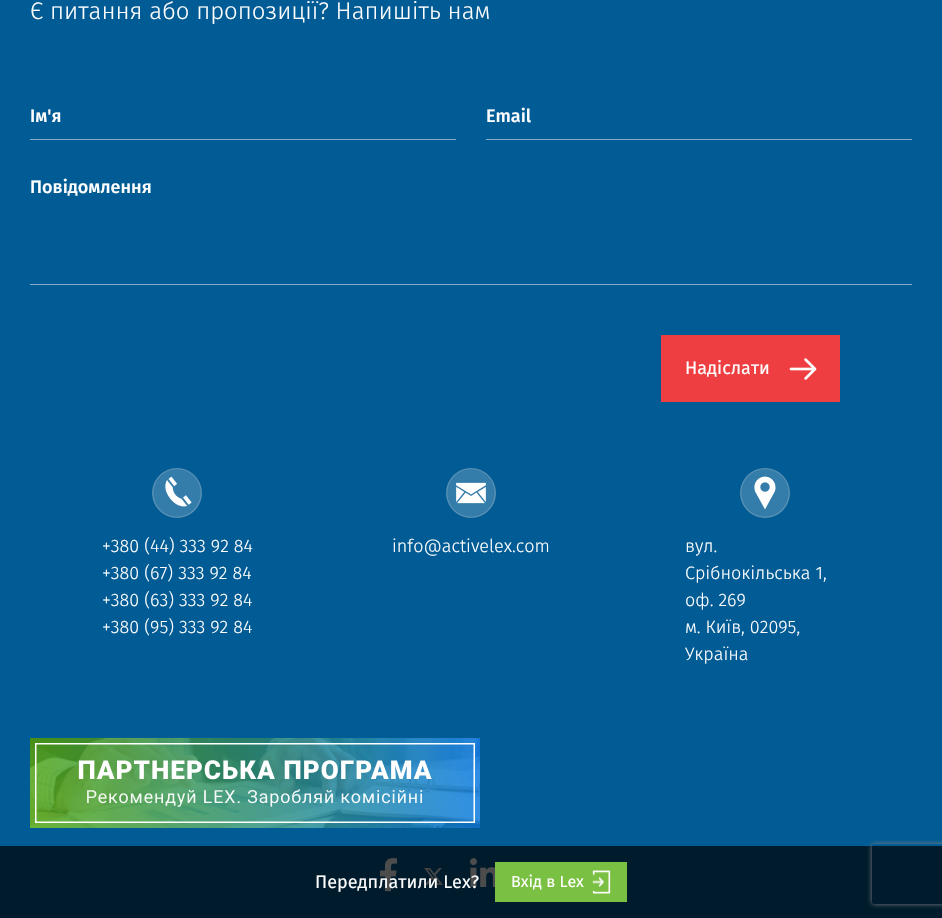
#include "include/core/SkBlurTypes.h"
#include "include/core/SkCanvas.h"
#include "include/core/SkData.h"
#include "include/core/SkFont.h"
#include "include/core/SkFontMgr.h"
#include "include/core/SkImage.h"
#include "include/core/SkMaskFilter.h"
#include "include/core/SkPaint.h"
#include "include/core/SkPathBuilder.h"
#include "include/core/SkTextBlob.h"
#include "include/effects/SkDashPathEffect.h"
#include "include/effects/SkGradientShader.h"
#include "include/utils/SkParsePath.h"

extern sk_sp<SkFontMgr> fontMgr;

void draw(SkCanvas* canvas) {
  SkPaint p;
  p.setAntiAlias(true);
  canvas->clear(SkColorSetRGB(1, 91, 148));
  p.setColor(SkColorSetRGB(0, 27, 44));
  canvas->drawRect(SkRect::MakeLTRB(0, 846, 942, 918), p);
  p.setColor(SkColorSetRGB(128, 173, 202));
  canvas->drawRect(SkRect::MakeLTRB(30, 139, 456, 140), p);
  canvas->drawRect(SkRect::MakeLTRB(486, 139, 912, 140), p);
  canvas->drawRect(SkRect::MakeLTRB(30, 284, 912, 285), p);
  p.setColor(SkColorSetRGB(238, 62, 65));
  canvas->drawRect(SkRect::MakeLTRB(661, 335, 840, 402), p);
  canvas->drawImageRect(SkImages::DeferredFromEncodedData(SkData::MakeFromFileName("images/1.png")), SkRect::MakeLTRB(789, 358, 817, 380), SkSamplingOptions());
  canvas->drawImageRect(SkImages::DeferredFromEncodedData(SkData::MakeFromFileName("images/2.png")), SkRect::MakeLTRB(152, 468, 202, 518), SkSamplingOptions());
  canvas->drawImageRect(SkImages::DeferredFromEncodedData(SkData::MakeFromFileName("images/3.png")), SkRect::MakeLTRB(446, 468, 496, 518), SkSamplingOptions());
  canvas->drawImageRect(SkImages::DeferredFromEncodedData(SkData::MakeFromFileName("images/4.png")), SkRect::MakeLTRB(740, 468, 790, 518), SkSamplingOptions());
  canvas->drawImageRect(SkImages::DeferredFromEncodedData(SkData::MakeFromFileName("images/5.png")), SkRect::MakeLTRB(30, 738, 480, 828), SkSamplingOptions());
  canvas->drawImageRect(SkImages::DeferredFromEncodedData(SkData::MakeFromFileName("images/6.png")), SkRect::MakeLTRB(380, 858, 397, 892), SkSamplingOptions());
  canvas->drawImageRect(SkImages::DeferredFromEncodedData(SkData::MakeFromFileName("images/7.png")), SkRect::MakeLTRB(424, 868, 443, 885), SkSamplingOptions());
  canvas->drawImageRect(SkImages::DeferredFromEncodedData(SkData::MakeFromFileName("images/8.png")), SkRect::MakeLTRB(470, 858, 495, 887), SkSamplingOptions());
  p.setColor(SkColorSetRGB(122, 192, 67));
  canvas->drawRect(SkRect::MakeLTRB(495, 862, 627, 902), p);
  canvas->drawImageRect(SkImages::DeferredFromEncodedData(SkData::MakeFromFileName("images/9.png")), SkRect::MakeLTRB(592, 870, 611, 894), SkSamplingOptions());
  canvas->save();
  canvas->clipPath(SkPathBuilder(SkPathFillType::kEvenOdd).moveTo(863, 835).lineTo(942, 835).lineTo(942, 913).lineTo(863, 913).close().moveTo(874, 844).lineTo(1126, 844).cubicTo(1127, 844, 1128, 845, 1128, 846).lineTo(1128, 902).cubicTo(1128, 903, 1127, 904, 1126, 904).lineTo(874, 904).cubicTo(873, 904, 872, 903, 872, 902).lineTo(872, 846).cubicTo(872, 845, 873, 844, 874, 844).close().detach(), true);
  p.setColor(SkColorSetRGB(128, 128, 128));
  p.setMaskFilter(SkMaskFilter::MakeBlur(kNormal_SkBlurStyle, 2.5f));
  canvas->drawRoundRect(SkRect::MakeLTRB(872, 844, 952, 904), 2, 2, p);
  p.setMaskFilter(nullptr);
  canvas->restore();
  SkFont font1(fontMgr->matchFamilyStyle("Fira Sans", SkFontStyle(300, SkFontStyle::kNormal_Width, SkFontStyle::kUpright_Slant)), 24);
  font1.setSubpixel(true);
  p.setColor(SK_ColorWHITE);
  canvas->drawString("Є питання або пропозиції? Напишіть нам", 30, 19, font1, p);
  SkFont font2(fontMgr->matchFamilyStyle("Fira Sans", SkFontStyle(500, SkFontStyle::kNormal_Width, SkFontStyle::kUpright_Slant)), 18);
  font2.setSubpixel(true);
  canvas->drawString("Ім'я", 30, 122, font2, p);
  canvas->drawString("Email", 486, 122, font2, p);
  canvas->drawString("Повідомлення", 30, 193, font2, p);
  SkFont font3(fontMgr->matchFamilyStyle("Fira Sans", SkFontStyle::Normal()), 18);
  font3.setSubpixel(true);
  canvas->drawString("Надіслати", 685, 374, font3, p);
  SkFont font4(fontMgr->matchFamilyStyle("Fira Sans", SkFontStyle(300, SkFontStyle::kNormal_Width, SkFontStyle::kUpright_Slant)), 18);
  font4.setSubpixel(true);
  canvas->drawString("+380 (44) 333 92 84", 102, 552, font4, p);
  canvas->drawString("+380 (67) 333 92 84", 102, 579, font4, p);
  canvas->drawString("+380 (63) 333 92 84", 102, 606, font4, p);
  canvas->drawString("+380 (95) 333 92 84", 102, 633, font4, p);
  canvas->drawString("info@activelex.com", 392, 552, font4, p);
  canvas->drawString("вул.", 685, 552, font4, p);
  canvas->drawString("Срібнокільська 1,", 685, 579, font4, p);
  canvas->drawString("оф. 269", 685, 606, font4, p);
  canvas->drawString("м. Київ, 02095,", 685, 633, font4, p);
  canvas->drawString("Україна", 685, 660, font4, p);
  canvas->drawString("Передплатили Lex?", 315, 888, font3, p);
  SkFont font5(fontMgr->matchFamilyStyle("Fira Sans", SkFontStyle::Normal()), 16);
  font5.setSubpixel(true);
  canvas->drawString("Вхід в Lex", 511, 887, font5, p);
}
